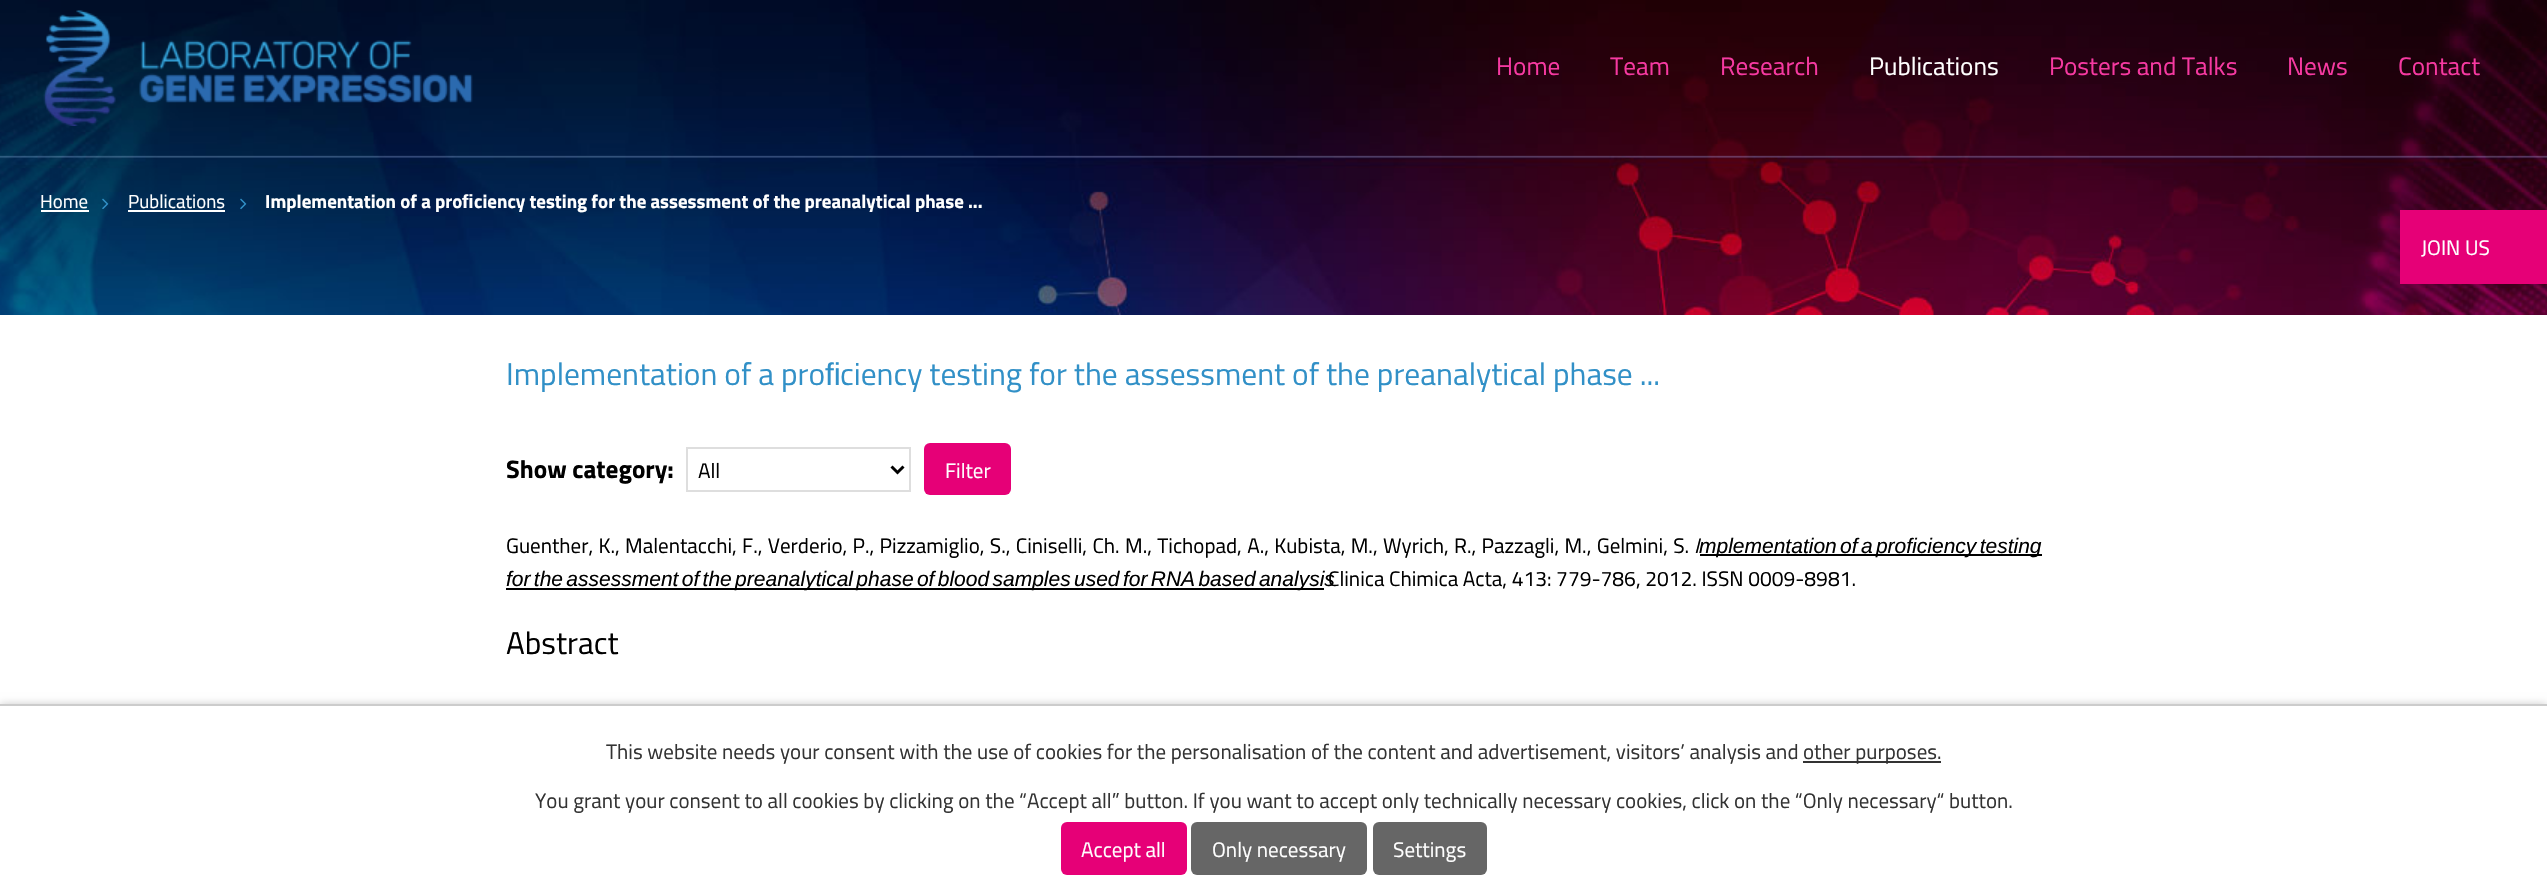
#include "include/core/SkBlurTypes.h"
#include "include/core/SkCanvas.h"
#include "include/core/SkData.h"
#include "include/core/SkFont.h"
#include "include/core/SkFontMgr.h"
#include "include/core/SkImage.h"
#include "include/core/SkMaskFilter.h"
#include "include/core/SkPaint.h"
#include "include/core/SkPathBuilder.h"
#include "include/core/SkTextBlob.h"
#include "include/effects/SkDashPathEffect.h"
#include "include/effects/SkGradientShader.h"
#include "include/utils/SkParsePath.h"

extern sk_sp<SkFontMgr> fontMgr;

void draw(SkCanvas* canvas) {
  SkPaint p;
  p.setAntiAlias(true);
  auto spacedText = [&](const char* s, float x, float y, const SkFont& font, const SkPaint& ink, float letter, float word) {
    std::vector<SkGlyphID> glyphs(font.countText(s, strlen(s), SkTextEncoding::kUTF8));
    std::vector<float> xs(glyphs.size());
    font.textToGlyphs(s, strlen(s), SkTextEncoding::kUTF8, glyphs);
    font.getXPos(glyphs, xs, x);
    float extra = 0;
    for (size_t i = 0; i < glyphs.size(); i++) {
      xs[i] += extra;
      extra += letter + word * (glyphs[i] == font.unicharToGlyph(' '));
    }
    canvas->drawTextBlob(SkTextBlob::MakeFromPosHGlyphs(glyphs, xs, y, font), 0, 0, ink);
  };
  canvas->clear(SK_ColorWHITE);
  canvas->drawImageRect(SkImages::DeferredFromEncodedData(SkData::MakeFromFileName("images/1.png")), SkRect::MakeLTRB(0, 0, 2547, 315), SkSamplingOptions());
  p.setColor(SK_ColorWHITE);
  canvas->drawRect(SkRect::MakeLTRB(41, 210, 89, 212), p);
  canvas->drawImageRect(SkImages::DeferredFromEncodedData(SkData::MakeFromFileName("images/2.png")), SkRect::MakeLTRB(102, 198, 109, 209), SkSamplingOptions());
  canvas->drawRect(SkRect::MakeLTRB(128, 210, 225, 212), p);
  canvas->drawImageRect(SkImages::DeferredFromEncodedData(SkData::MakeFromFileName("images/3.png")), SkRect::MakeLTRB(240, 198, 247, 210), SkSamplingOptions());
  canvas->drawImageRect(SkImages::DeferredFromEncodedData(SkData::MakeFromFileName("images/4.png")), SkRect::MakeLTRB(43, 10, 473, 126), SkSamplingOptions());
  p.setColor(SkColorSetRGB(230, 0, 119));
  canvas->drawRect(SkRect::MakeLTRB(2400, 210, 2547, 284), p);
  p.setStyle(SkPaint::kStroke_Style);
  p.setStrokeWidth(2);
  p.setColor(SkColorSetRGB(222, 222, 222));
  canvas->drawRect(SkRect::MakeLTRB(687, 448, 910, 491), p);
  p.setStrokeWidth(3);
  p.setColor(SK_ColorBLACK);
  canvas->drawPath(SkPathBuilder().moveTo(891.5f, 466.5f).lineTo(897.5f, 472.5f).lineTo(903.5f, 466.5f).detach(), p);
  p.setStyle(SkPaint::kFill_Style);
  p.setColor(SkColorSetRGB(230, 0, 119));
  canvas->drawRoundRect(SkRect::MakeLTRB(924, 443, 1011, 495), 6, 6, p);
  p.setColor(SK_ColorBLACK);
  canvas->drawRect(SkRect::MakeLTRB(1700, 554, 2042, 556), p);
  canvas->drawRect(SkRect::MakeLTRB(506, 588, 1319, 590), p);
  canvas->drawRect(SkRect::MakeLTRB(1319, 588, 1324, 590), p);
  p.setColor(SkColorSetARGB(51, 0, 0, 0));
  p.setMaskFilter(SkMaskFilter::MakeBlur(kNormal_SkBlurStyle, 4));
  canvas->drawRect(SkRect::MakeLTRB(0, 704, 2547, 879), p);
  p.setMaskFilter(nullptr);
  p.setColor(SK_ColorWHITE);
  canvas->drawRect(SkRect::MakeLTRB(0, 706, 2547, 878), p);
  p.setColor(SkColorSetRGB(204, 204, 204));
  canvas->drawRect(SkRect::MakeLTRB(0, 704, 2547, 706), p);
  p.setColor(SkColorSetRGB(51, 51, 51));
  canvas->drawRect(SkRect::MakeLTRB(1803, 761, 1941, 763), p);
  p.setColor(SkColorSetRGB(230, 0, 119));
  canvas->drawRoundRect(SkRect::MakeLTRB(1061, 822, 1187, 875), 6, 6, p);
  p.setColor(SkColorSetRGB(102, 102, 102));
  canvas->drawRoundRect(SkRect::MakeLTRB(1191, 822, 1367, 875), 6, 6, p);
  canvas->drawRoundRect(SkRect::MakeLTRB(1373, 822, 1487, 875), 6, 6, p);
  SkFont font1(fontMgr->matchFamilyStyle("Titillium Web", SkFontStyle::Normal()), 25.25f);
  font1.setSubpixel(true);
  p.setColor(SkColorSetRGB(246, 57, 161));
  canvas->drawString("Home", 1496, 75, font1, p);
  canvas->drawString("Team", 1610, 75, font1, p);
  canvas->drawString("Research", 1720, 75, font1, p);
  p.setColor(SK_ColorWHITE);
  canvas->drawString("Publications", 1869, 75, font1, p);
  p.setColor(SkColorSetRGB(246, 57, 161));
  canvas->drawString("Posters and Talks", 2049, 75, font1, p);
  canvas->drawString("News", 2287, 75, font1, p);
  canvas->drawString("Contact", 2398, 75, font1, p);
  SkFont font2(fontMgr->matchFamilyStyle("Titillium Web", SkFontStyle::Normal()), 18.9f);
  font2.setSubpixel(true);
  p.setColor(SK_ColorWHITE);
  canvas->drawString("Home", 40, 208, font2, p);
  canvas->drawString("Publications", 128, 208, font2, p);
  SkFont font3(fontMgr->matchFamilyStyle("Titillium Web", SkFontStyle::Bold()), 18.9f);
  font3.setSubpixel(true);
  canvas->drawString("Implementation of a pro", 265, 208, font3, p);
  SkFont font4(fontMgr->matchFamilyStyle("Liberation Sans", SkFontStyle::Bold()), 18.9f);
  font4.setSubpixel(true);
  canvas->drawString("ﬁ", 462, 208, font4, p);
  canvas->drawString("ciency testing for the assessment of the preanalytical phase ...", 474, 208, font3, p);
  SkFont font5(fontMgr->matchFamilyStyle("Titillium Web", SkFontStyle::Normal()), 21);
  font5.setSubpixel(true);
  canvas->drawString("JOIN US", 2421, 255, font5, p);
  SkFont font6(fontMgr->matchFamilyStyle("Titillium Web", SkFontStyle::Normal()), 31.5f);
  font6.setSubpixel(true);
  p.setColor(SkColorSetRGB(49, 144, 199));
  canvas->drawString("Implementation of a pro", 506, 385, font6, p);
  SkFont font7(fontMgr->matchFamilyStyle("Liberation Sans", SkFontStyle::Normal()), 31.5f);
  font7.setSubpixel(true);
  canvas->drawString("ﬁ", 825, 385, font7, p);
  canvas->drawString("ciency testing for the assessment of the preanalytical phase ...", 840, 385, font6, p);
  SkFont font8(fontMgr->matchFamilyStyle("Titillium Web", SkFontStyle::Bold()), 25.25f);
  font8.setSubpixel(true);
  p.setColor(SK_ColorBLACK);
  canvas->drawString("Show category:", 506, 478, font8, p);
  canvas->drawString("All", 698, 478, font5, p);
  p.setColor(SK_ColorWHITE);
  canvas->drawString("Filter", 945, 478, font5, p);
  p.setColor(SK_ColorBLACK);
  spacedText("Guenther, K., Malentacchi, F., Verderio, P., Pizzamiglio, S., Ciniselli, Ch. M., Tichopad, A., Kubista, M., Wyrich, R., Pazzagli, M., Gelmini, S.", 506, 553, font5, p, 0, 0.75f);
  SkFont font9(fontMgr->matchFamilyStyle("Titillium Web", SkFontStyle::Italic()), 21);
  font9.setSubpixel(true);
  canvas->drawString("I", 1694, 553, font9, p);
  SkFont font10(fontMgr->matchFamilyStyle("Liberation Sans", SkFontStyle::Italic()), 21);
  font10.setSubpixel(true);
  spacedText("mplementation of a proﬁciency testing", 1699, 553, font10, p, 0, -2.5f);
  spacedText("for the assessment of the preanalytical phase of blood samples used for RNA based analysis", 506, 586, font10, p, 0, -2.5f);
  canvas->drawString("Clinica Chimica Acta, 413: 779-786, 2012. ISSN 0009-8981.", 1328, 586, font5, p);
  canvas->drawString("Abstract", 506, 654, font6, p);
  p.setColor(SkColorSetRGB(51, 51, 51));
  canvas->drawString("This website needs your consent with the use of cookies for the personalisation of the content and advertisement, visitors’ analysis and", 606, 759, font5, p);
  canvas->drawString("other purposes.", 1803, 759, font5, p);
  canvas->drawString("You grant your consent to all cookies by clicking on the “Accept all” button. If you want to accept only technically necessary cookies, click on the “Only necessary“ button.", 535, 808, font5, p);
  p.setColor(SK_ColorWHITE);
  canvas->drawString("Accept all", 1081, 857, font5, p);
  canvas->drawString("Only necessary", 1212, 857, font5, p);
  canvas->drawString("Settings", 1393, 857, font5, p);
}
